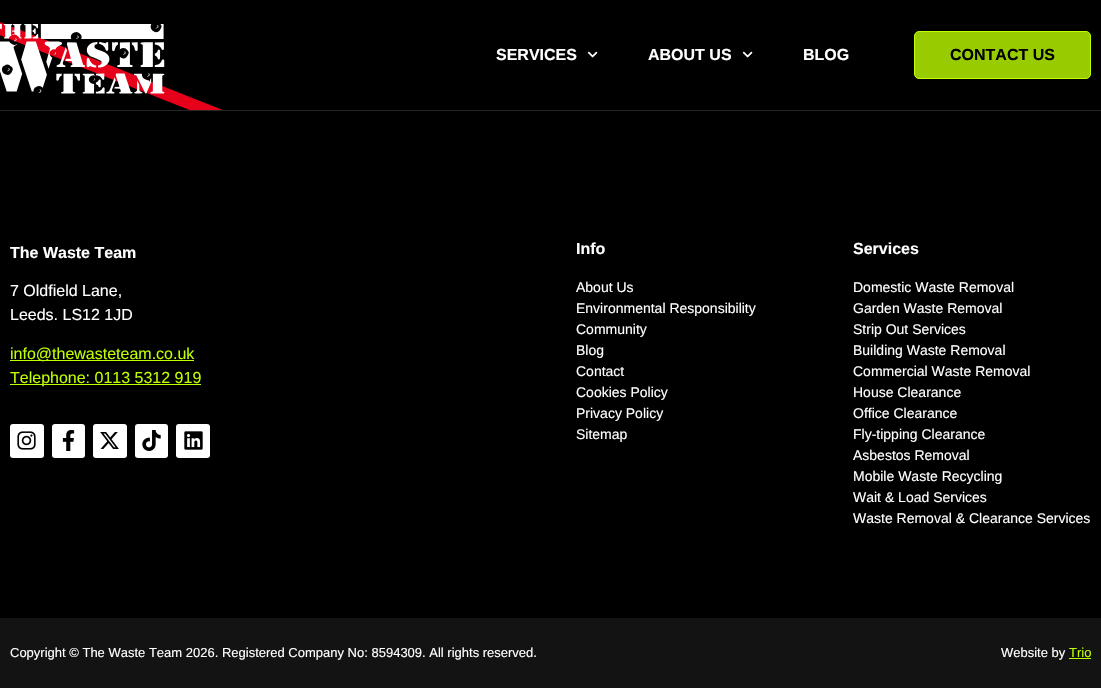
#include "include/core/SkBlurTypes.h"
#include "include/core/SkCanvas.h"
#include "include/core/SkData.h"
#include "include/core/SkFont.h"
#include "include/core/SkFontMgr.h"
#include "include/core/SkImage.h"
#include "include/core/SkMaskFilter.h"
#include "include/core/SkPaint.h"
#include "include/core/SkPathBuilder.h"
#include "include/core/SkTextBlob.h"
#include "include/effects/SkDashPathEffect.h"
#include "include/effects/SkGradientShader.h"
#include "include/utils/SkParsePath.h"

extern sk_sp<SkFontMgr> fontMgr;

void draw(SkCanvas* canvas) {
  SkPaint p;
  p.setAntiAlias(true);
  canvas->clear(SK_ColorBLACK);
  p.setColor(SkColorSetRGB(37, 37, 37));
  canvas->drawRect(SkRect::MakeLTRB(0, 110, 1101, 111), p);
  canvas->drawImageRect(SkImages::DeferredFromEncodedData(SkData::MakeFromFileName("images/1.png")), SkRect::MakeLTRB(0, 22, 223, 110), SkSamplingOptions());
  canvas->drawImageRect(SkImages::DeferredFromEncodedData(SkData::MakeFromFileName("images/2.png")), SkRect::MakeLTRB(587, 51, 598, 58), SkSamplingOptions());
  canvas->drawImageRect(SkImages::DeferredFromEncodedData(SkData::MakeFromFileName("images/2.png")), SkRect::MakeLTRB(742, 51, 753, 58), SkSamplingOptions());
  p.setColor(SkColorSetRGB(153, 204, 0));
  canvas->drawRoundRect(SkRect::MakeLTRB(914.5f, 31.5f, 1090.5f, 78.5f), 4.5f, 4.5f, p);
  p.setStyle(SkPaint::kStroke_Style);
  p.setStrokeWidth(1);
  p.setColor(SkColorSetRGB(191, 255, 3));
  canvas->drawRoundRect(SkRect::MakeLTRB(914.5f, 31.5f, 1090.5f, 78.5f), 4.5f, 4.5f, p);
  p.setStyle(SkPaint::kFill_Style);
  canvas->drawRect(SkRect::MakeLTRB(10, 360, 194, 361), p);
  canvas->drawRect(SkRect::MakeLTRB(10, 384, 201, 385), p);
  p.setColor(SK_ColorWHITE);
  canvas->drawRoundRect(SkRect::MakeLTRB(10, 424, 44, 458), 3, 3, p);
  canvas->drawImageRect(SkImages::DeferredFromEncodedData(SkData::MakeFromFileName("images/3.png")), SkRect::MakeLTRB(17, 431, 36, 450), SkSamplingOptions());
  canvas->drawRoundRect(SkRect::MakeLTRB(52, 424, 85, 458), 3, 3, p);
  canvas->drawImageRect(SkImages::DeferredFromEncodedData(SkData::MakeFromFileName("images/4.png")), SkRect::MakeLTRB(62, 430, 75, 451), SkSamplingOptions());
  canvas->drawRoundRect(SkRect::MakeLTRB(93, 424, 127, 458), 3, 3, p);
  canvas->drawImageRect(SkImages::DeferredFromEncodedData(SkData::MakeFromFileName("images/5.png")), SkRect::MakeLTRB(100, 432, 119, 449), SkSamplingOptions());
  canvas->drawRoundRect(SkRect::MakeLTRB(135, 424, 168, 458), 3, 3, p);
  canvas->drawImageRect(SkImages::DeferredFromEncodedData(SkData::MakeFromFileName("images/6.png")), SkRect::MakeLTRB(142, 430, 161, 451), SkSamplingOptions());
  canvas->drawRoundRect(SkRect::MakeLTRB(176, 424, 210, 458), 3, 3, p);
  canvas->drawImageRect(SkImages::DeferredFromEncodedData(SkData::MakeFromFileName("images/7.png")), SkRect::MakeLTRB(184, 431, 203, 450), SkSamplingOptions());
  p.setColor(SkColorSetRGB(19, 19, 19));
  canvas->drawRect(SkRect::MakeLTRB(0, 618, 1101, 688), p);
  p.setColor(SkColorSetRGB(191, 255, 3));
  canvas->drawRect(SkRect::MakeLTRB(1069, 658, 1091, 659), p);
  SkFont font1(fontMgr->matchFamilyStyle("Liberation Sans", SkFontStyle::Bold()), 16);
  font1.setSubpixel(true);
  p.setColor(SK_ColorWHITE);
  canvas->drawString("SERVICES", 496, 60, font1, p);
  canvas->drawString("ABOUT US", 648, 60, font1, p);
  canvas->drawString("BLOG", 803, 60, font1, p);
  p.setColor(SK_ColorBLACK);
  canvas->drawString("CONTACT US", 950, 60, font1, p);
  p.setColor(SK_ColorWHITE);
  canvas->drawString("The Waste Team", 10, 258, font1, p);
  SkFont font2(fontMgr->matchFamilyStyle("Liberation Sans", SkFontStyle::Normal()), 16);
  font2.setSubpixel(true);
  canvas->drawString("7 Oldfield Lane,", 10, 296, font2, p);
  canvas->drawString("Leeds. LS12 1JD", 10, 320, font2, p);
  p.setColor(SkColorSetRGB(191, 255, 3));
  canvas->drawString("info@thewasteteam.co.uk", 10, 359, font2, p);
  canvas->drawString("Telephone: 0113 5312 919", 10, 383, font2, p);
  p.setColor(SK_ColorWHITE);
  canvas->drawString("Info", 576, 254, font1, p);
  SkFont font3(fontMgr->matchFamilyStyle("Liberation Sans", SkFontStyle::Normal()), 14);
  font3.setSubpixel(true);
  canvas->drawString("About Us", 576, 292, font3, p);
  canvas->drawString("Environmental Responsibility", 576, 313, font3, p);
  canvas->drawString("Community", 576, 334, font3, p);
  canvas->drawString("Blog", 576, 355, font3, p);
  canvas->drawString("Contact", 576, 376, font3, p);
  canvas->drawString("Cookies Policy", 576, 397, font3, p);
  canvas->drawString("Privacy Policy", 576, 418, font3, p);
  canvas->drawString("Sitemap", 576, 439, font3, p);
  canvas->drawString("Services", 853, 254, font1, p);
  canvas->drawString("Domestic Waste Removal", 853, 292, font3, p);
  canvas->drawString("Garden Waste Removal", 853, 313, font3, p);
  canvas->drawString("Strip Out Services", 853, 334, font3, p);
  canvas->drawString("Building Waste Removal", 853, 355, font3, p);
  canvas->drawString("Commercial Waste Removal", 853, 376, font3, p);
  canvas->drawString("House Clearance", 853, 397, font3, p);
  canvas->drawString("Office Clearance", 853, 418, font3, p);
  canvas->drawString("Fly-tipping Clearance", 853, 439, font3, p);
  canvas->drawString("Asbestos Removal", 853, 460, font3, p);
  canvas->drawString("Mobile Waste Recycling", 853, 481, font3, p);
  canvas->drawString("Wait & Load Services", 853, 502, font3, p);
  canvas->drawString("Waste Removal & Clearance Services", 853, 523, font3, p);
  SkFont font4(fontMgr->matchFamilyStyle("Liberation Sans", SkFontStyle::Normal()), 13);
  font4.setSubpixel(true);
  canvas->drawString("Copyright © The Waste Team 2026. Registered Company No: 8594309. All rights reserved.", 10, 657, font4, p);
  canvas->drawString("Website by", 1001, 657, font4, p);
  p.setColor(SkColorSetRGB(191, 255, 3));
  canvas->drawString("Trio", 1069, 657, font4, p);
}
